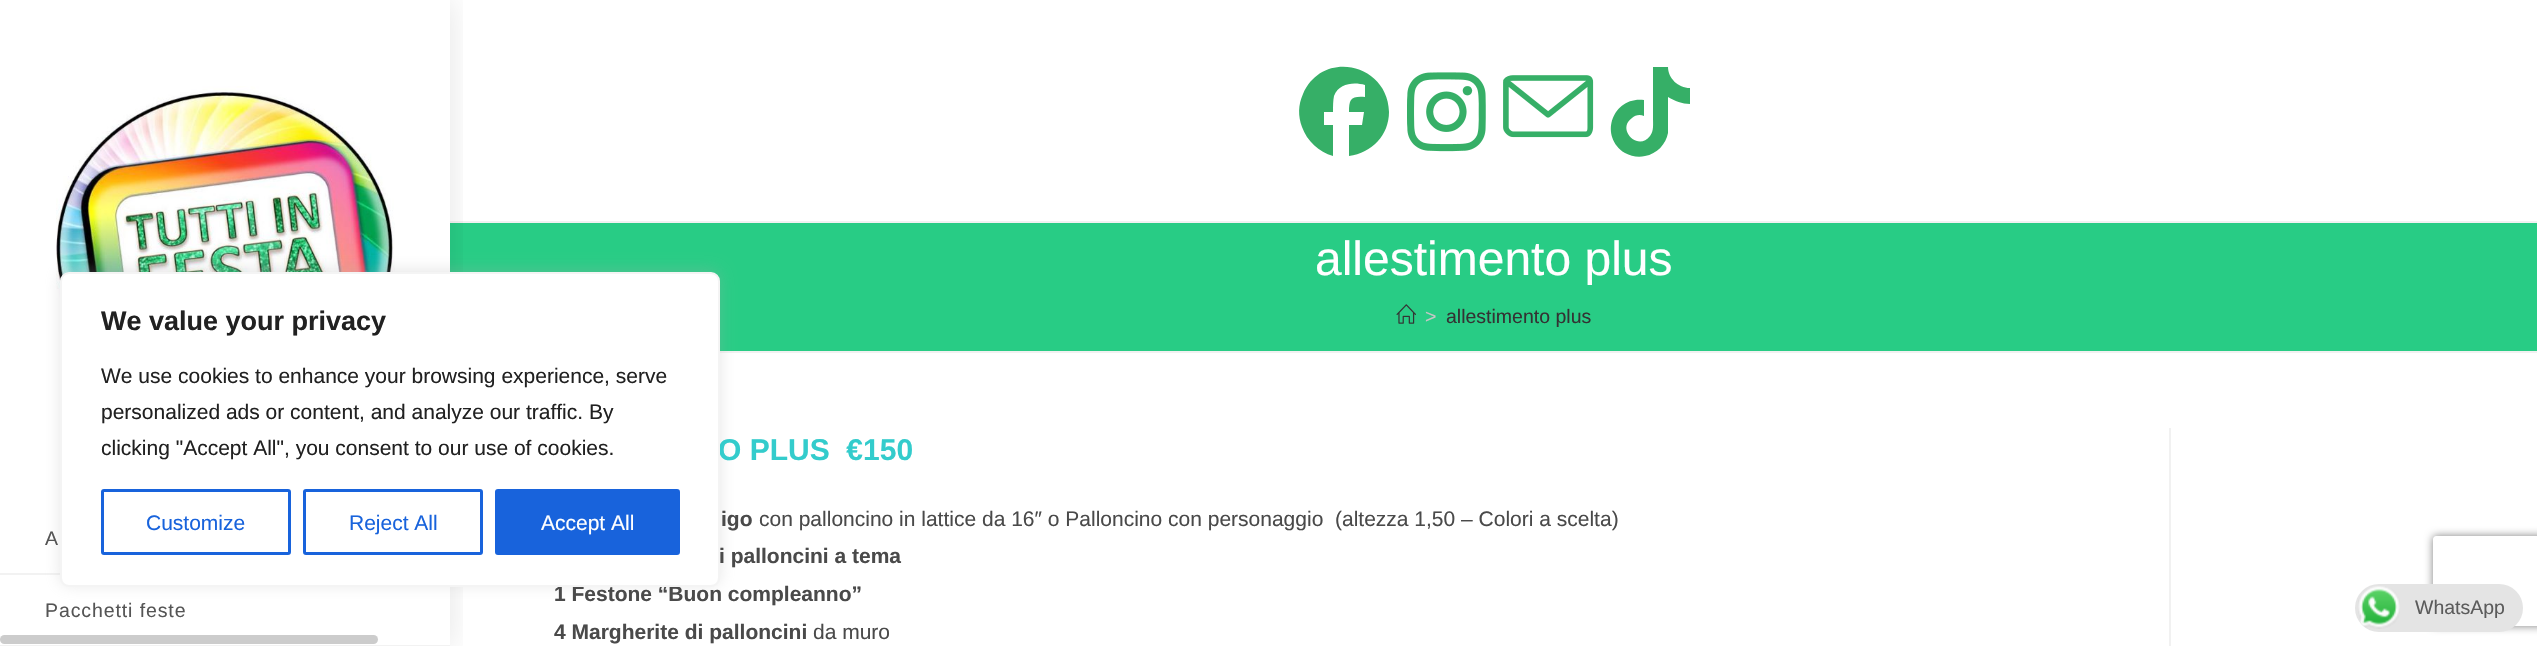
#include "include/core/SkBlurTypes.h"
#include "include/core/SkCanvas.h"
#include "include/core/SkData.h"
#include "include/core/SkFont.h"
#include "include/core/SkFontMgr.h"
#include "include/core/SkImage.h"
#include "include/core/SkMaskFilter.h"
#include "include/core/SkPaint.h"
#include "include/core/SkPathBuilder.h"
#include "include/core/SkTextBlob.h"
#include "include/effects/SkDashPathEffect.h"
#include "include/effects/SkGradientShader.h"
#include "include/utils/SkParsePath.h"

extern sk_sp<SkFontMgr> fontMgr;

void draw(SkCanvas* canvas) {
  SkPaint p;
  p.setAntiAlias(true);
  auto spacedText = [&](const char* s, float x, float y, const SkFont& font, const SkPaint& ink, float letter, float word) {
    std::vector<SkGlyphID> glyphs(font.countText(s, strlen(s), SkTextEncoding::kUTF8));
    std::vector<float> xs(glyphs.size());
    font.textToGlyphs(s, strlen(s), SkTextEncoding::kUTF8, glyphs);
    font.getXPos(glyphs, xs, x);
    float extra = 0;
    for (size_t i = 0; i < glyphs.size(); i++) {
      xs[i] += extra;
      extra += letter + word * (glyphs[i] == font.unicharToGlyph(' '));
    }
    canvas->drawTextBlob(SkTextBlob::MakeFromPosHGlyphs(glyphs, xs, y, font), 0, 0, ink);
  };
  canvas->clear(SK_ColorWHITE);
  p.setColor(SkColorSetRGB(241, 241, 241));
  canvas->drawRect(SkRect::MakeLTRB(450, 221, 2537, 223), p);
  p.setColor(SkColorSetRGB(54, 175, 103));
  canvas->drawPath(SkPathBuilder().moveTo(1389, 112).cubicTo(1388, 63, 1322, 49, 1303, 94).cubicTo(1298, 105, 1298, 116, 1302, 127).cubicTo(1307, 141, 1319, 152, 1333, 156).lineTo(1333, 125).lineTo(1324, 125).lineTo(1324, 112).lineTo(1333, 112).cubicTo(1333, 106, 1333, 101, 1334, 96).cubicTo(1339, 83, 1354, 82, 1365, 85).lineTo(1365, 97).cubicTo(1351, 96, 1349, 99, 1349, 112).lineTo(1364, 112).lineTo(1362, 125).lineTo(1349, 125).lineTo(1349, 156).cubicTo(1372, 153, 1389, 135, 1389, 112).close().detach(), p);
  canvas->drawImageRect(SkImages::DeferredFromEncodedData(SkData::MakeFromFileName("images/1.png")), SkRect::MakeLTRB(1407, 72, 1486, 152), SkSamplingOptions());
  canvas->drawImageRect(SkImages::DeferredFromEncodedData(SkData::MakeFromFileName("images/2.png")), SkRect::MakeLTRB(1503, 75, 1594, 138), SkSamplingOptions());
  canvas->drawPath(SkPathBuilder().moveTo(1690, 104).cubicTo(1682, 104, 1675, 101, 1668, 97).lineTo(1668, 133).cubicTo(1666, 144, 1657, 154, 1645, 156).cubicTo(1638, 158, 1631, 156, 1625, 153).cubicTo(1598, 136, 1613, 96, 1644, 100).lineTo(1644, 116).cubicTo(1640, 114, 1635, 115, 1632, 118).cubicTo(1616, 129, 1638, 152, 1650, 136).cubicTo(1654, 131, 1653, 124, 1653, 118).lineTo(1653, 67).lineTo(1668, 67).cubicTo(1668, 78, 1678, 88, 1690, 88).close().detach(), p);
  p.setColor(SkColorSetRGB(40, 204, 133));
  canvas->drawRect(SkRect::MakeLTRB(450, 223, 2537, 351), p);
  canvas->save();
  canvas->clipRect(SkRect::MakeLTRB(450, 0, 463, 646));
  p.setColor(SkColorSetARGB(26, 0, 0, 0));
  p.setMaskFilter(SkMaskFilter::MakeBlur(kNormal_SkBlurStyle, 15));
  canvas->drawRect(SkRect::MakeLTRB(0, 0, 450, 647), p);
  p.setMaskFilter(nullptr);
  canvas->restore();
  canvas->drawImageRect(SkImages::DeferredFromEncodedData(SkData::MakeFromFileName("images/3.png")), SkRect::MakeLTRB(56, 86, 395, 406), SkSamplingOptions());
  p.setColor(SkColorSetRGB(242, 242, 242));
  canvas->drawRect(SkRect::MakeLTRB(0, 573, 60, 575), p);
  canvas->drawRect(SkRect::MakeLTRB(0, 645, 450, 646), p);
  p.setColor(SkColorSetRGB(204, 204, 204));
  canvas->drawRoundRect(SkRect::MakeLTRB(0, 635, 378, 644), 4.5f, 4.5f, p);
  p.setColor(SkColorSetRGB(241, 241, 241));
  canvas->drawRect(SkRect::MakeLTRB(720, 351, 2537, 353), p);
  canvas->drawImageRect(SkImages::DeferredFromEncodedData(SkData::MakeFromFileName("images/4.png")), SkRect::MakeLTRB(1396, 304, 1416, 324), SkSamplingOptions());
  canvas->drawRect(SkRect::MakeLTRB(2169, 428, 2171, 646), p);
  p.setColor(SkColorSetARGB(77, 172, 171, 171));
  p.setMaskFilter(SkMaskFilter::MakeBlur(kNormal_SkBlurStyle, 7.5f));
  canvas->drawRoundRect(SkRect::MakeLTRB(60, 270, 720, 585), 9, 9, p);
  p.setMaskFilter(nullptr);
  canvas->save();
  canvas->clipPath(SkPathBuilder(SkPathFillType::kEvenOdd).moveTo(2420, 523).lineTo(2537, 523).lineTo(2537, 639).lineTo(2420, 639).close().moveTo(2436, 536).lineTo(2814, 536).cubicTo(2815.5f, 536, 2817, 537.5f, 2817, 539).lineTo(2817, 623).cubicTo(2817, 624.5f, 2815.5f, 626, 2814, 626).lineTo(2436, 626).cubicTo(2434.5f, 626, 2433, 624.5f, 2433, 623).lineTo(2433, 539).cubicTo(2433, 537.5f, 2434.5f, 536, 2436, 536).close().detach(), true);
  p.setColor(SkColorSetRGB(128, 128, 128));
  p.setMaskFilter(SkMaskFilter::MakeBlur(kNormal_SkBlurStyle, 4));
  canvas->drawRoundRect(SkRect::MakeLTRB(2433, 536, 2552, 626), 3, 3, p);
  p.setMaskFilter(nullptr);
  canvas->restore();
  p.setColor(SkColorSetRGB(228, 228, 228));
  canvas->drawRoundRect(SkRect::MakeLTRB(2355, 584, 2523, 632), 24, 24, p);
  canvas->drawImageRect(SkImages::DeferredFromEncodedData(SkData::MakeFromFileName("images/5.png")), SkRect::MakeLTRB(2358, 586, 2400, 629), SkSamplingOptions());
  SkFont font1(fontMgr->matchFamilyStyle("Liberation Sans", SkFontStyle::Normal()), 19.5f);
  font1.setSubpixel(true);
  p.setColor(SkColorSetRGB(85, 85, 85));
  spacedText("A", 45, 545, font1, p, 0.9f, 0);
  spacedText("Pacchetti feste", 45, 617, font1, p, 0.9f, 0);
  SkFont font2(fontMgr->matchFamilyStyle("Liberation Sans", SkFontStyle::Normal()), 48);
  font2.setSubpixel(true);
  p.setColor(SK_ColorWHITE);
  canvas->drawString("allestimento plus", 1315, 275, font2, p);
  p.setColor(SkColorSetRGB(198, 198, 198));
  canvas->drawString(">", 1425, 323, font1, p);
  p.setColor(SkColorSetRGB(51, 51, 51));
  canvas->drawString("allestimento plus", 1446, 323, font1, p);
  SkFont font3(fontMgr->matchFamilyStyle("Liberation Sans", SkFontStyle::Bold()), 30);
  font3.setSubpixel(true);
  p.setColor(SkColorSetRGB(51, 204, 204));
  canvas->drawString("O PLUS  €150", 718, 460, font3, p);
  SkFont font4(fontMgr->matchFamilyStyle("Liberation Sans", SkFontStyle::Bold()), 21);
  font4.setSubpixel(true);
  p.setColor(SkColorSetRGB(74, 74, 74));
  canvas->drawString("igo", 721, 526, font4, p);
  SkFont font5(fontMgr->matchFamilyStyle("Liberation Sans", SkFontStyle::Normal()), 21);
  font5.setSubpixel(true);
  canvas->drawString("con palloncino in lattice da 16″ o Palloncino con personaggio  (altezza 1,50 – Colori a scelta)", 759, 526, font5, p);
  canvas->drawString("i palloncini a tema", 719, 563, font4, p);
  canvas->drawString("1 Festone “Buon compleanno”", 554, 601, font4, p);
  canvas->drawString("4 Margherite di palloncini", 554, 639, font4, p);
  canvas->drawString("da muro", 813, 639, font5, p);
  p.setColor(SK_ColorWHITE);
  canvas->drawRoundRect(SkRect::MakeLTRB(61, 273, 719, 586), 8, 8, p);
  p.setStyle(SkPaint::kStroke_Style);
  p.setStrokeWidth(2);
  p.setColor(SkColorSetRGB(244, 244, 244));
  canvas->drawRoundRect(SkRect::MakeLTRB(61, 273, 719, 586), 8, 8, p);
  SkFont font6(fontMgr->matchFamilyStyle("Liberation Sans", SkFontStyle::Bold()), 27);
  font6.setSubpixel(true);
  p.setStyle(SkPaint::kFill_Style);
  p.setColor(SkColorSetRGB(33, 33, 33));
  canvas->drawString("We value your privacy", 101, 330, font6, p);
  canvas->drawString("We use cookies to enhance your browsing experience, serve", 101, 383, font5, p);
  canvas->drawString("personalized ads or content, and analyze our traffic. By", 101, 419, font5, p);
  canvas->drawString("clicking \"Accept All\", you consent to our use of cookies.", 101, 455, font5, p);
  p.setStyle(SkPaint::kStroke_Style);
  p.setStrokeWidth(3);
  p.setColor(SkColorSetRGB(24, 99, 220));
  canvas->drawRoundRect(SkRect::MakeLTRB(102.5f, 490.5f, 289.5f, 553.5f), 1.5f, 1.5f, p);
  p.setStyle(SkPaint::kFill_Style);
  canvas->drawString("Customize", 146, 530, font5, p);
  p.setStyle(SkPaint::kStroke_Style);
  canvas->drawRoundRect(SkRect::MakeLTRB(304.5f, 490.5f, 481.5f, 553.5f), 1.5f, 1.5f, p);
  p.setStyle(SkPaint::kFill_Style);
  canvas->drawString("Reject All", 349, 530, font5, p);
  canvas->drawRoundRect(SkRect::MakeLTRB(496.5f, 490.5f, 678.5f, 553.5f), 1.5f, 1.5f, p);
  p.setStyle(SkPaint::kStroke_Style);
  canvas->drawRoundRect(SkRect::MakeLTRB(496.5f, 490.5f, 678.5f, 553.5f), 1.5f, 1.5f, p);
  p.setStyle(SkPaint::kFill_Style);
  p.setColor(SK_ColorWHITE);
  canvas->drawString("Accept All", 541, 530, font5, p);
  p.setColor(SkColorSetRGB(91, 91, 91));
  canvas->drawString("WhatsApp", 2415, 614, font1, p);
}
